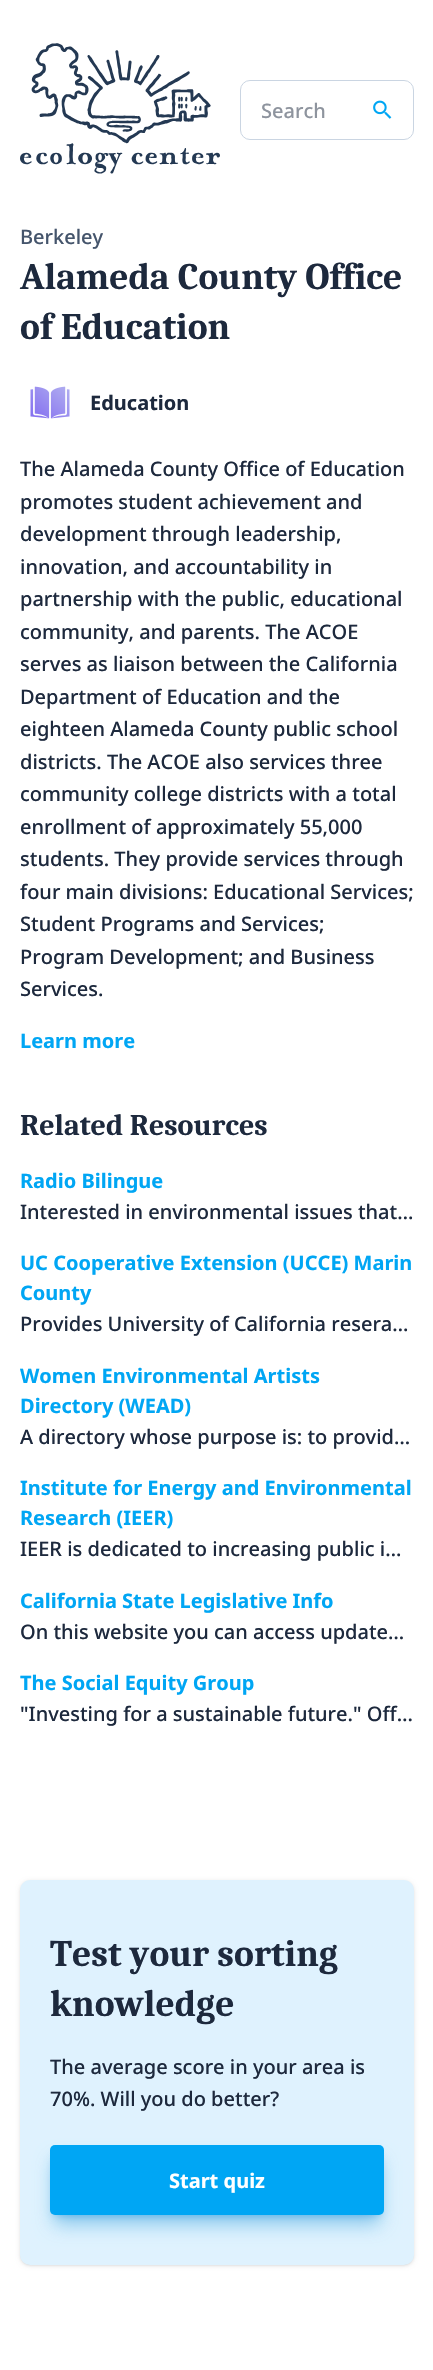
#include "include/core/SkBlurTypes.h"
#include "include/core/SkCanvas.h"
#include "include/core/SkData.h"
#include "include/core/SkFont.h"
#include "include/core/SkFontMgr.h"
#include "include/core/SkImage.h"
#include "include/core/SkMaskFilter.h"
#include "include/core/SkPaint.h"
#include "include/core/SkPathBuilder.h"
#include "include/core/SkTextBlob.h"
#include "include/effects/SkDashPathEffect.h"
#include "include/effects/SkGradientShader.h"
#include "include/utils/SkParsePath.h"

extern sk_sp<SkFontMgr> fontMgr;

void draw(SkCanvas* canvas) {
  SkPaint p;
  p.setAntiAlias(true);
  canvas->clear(SK_ColorWHITE);
  canvas->drawImageRect(SkImages::DeferredFromEncodedData(SkData::MakeFromFileName("images/1.png")), SkRect::MakeLTRB(20, 43, 220, 174), SkSamplingOptions());
  p.setStyle(SkPaint::kStroke_Style);
  p.setStrokeWidth(1);
  p.setColor(SkColorSetRGB(202, 213, 226));
  canvas->drawRoundRect(SkRect::MakeLTRB(240.5f, 80.5f, 413.5f, 139.5f), 9.5f, 9.5f, p);
  canvas->drawImageRect(SkImages::DeferredFromEncodedData(SkData::MakeFromFileName("images/2.png")), SkRect::MakeLTRB(373, 100, 392, 119), SkSamplingOptions());
  canvas->drawImageRect(SkImages::DeferredFromEncodedData(SkData::MakeFromFileName("images/3.png")), SkRect::MakeLTRB(30, 386, 70, 419), SkSamplingOptions());
  p.setStyle(SkPaint::kFill_Style);
  p.setColor(SkColorSetARGB(26, 0, 0, 0));
  p.setMaskFilter(SkMaskFilter::MakeBlur(kNormal_SkBlurStyle, 1));
  canvas->drawRoundRect(SkRect::MakeLTRB(21, 1883, 413, 2265), 9, 9, p);
  p.setMaskFilter(nullptr);
  p.setMaskFilter(SkMaskFilter::MakeBlur(kNormal_SkBlurStyle, 2));
  canvas->drawRoundRect(SkRect::MakeLTRB(20, 1881, 414, 2266), 10, 10, p);
  p.setMaskFilter(nullptr);
  p.setColor(SkColorSetRGB(223, 242, 254));
  canvas->drawRoundRect(SkRect::MakeLTRB(20, 1880, 414, 2265), 10, 10, p);
  p.setColor(SkColorSetARGB(102, 0, 132, 209));
  p.setMaskFilter(SkMaskFilter::MakeBlur(kNormal_SkBlurStyle, 4));
  canvas->drawRect(SkRect::MakeLTRB(55, 2155, 379, 2215), p);
  p.setMaskFilter(nullptr);
  p.setMaskFilter(SkMaskFilter::MakeBlur(kNormal_SkBlurStyle, 9.5f));
  canvas->drawRoundRect(SkRect::MakeLTRB(54, 2161, 380, 2224), 1, 1, p);
  p.setMaskFilter(nullptr);
  p.setColor(SkColorSetRGB(0, 166, 244));
  canvas->drawRoundRect(SkRect::MakeLTRB(50, 2145, 384, 2215), 5, 5, p);
  SkFont font1(fontMgr->matchFamilyStyle("Noto Sans", SkFontStyle(500, SkFontStyle::kNormal_Width, SkFontStyle::kUpright_Slant)), 20);
  font1.setSubpixel(true);
  p.setColor(SkColorSetRGB(142, 148, 158));
  canvas->drawString("Search", 261, 118, font1, p);
  p.setColor(SkColorSetRGB(69, 85, 108));
  canvas->drawString("Berkeley", 20, 244, font1, p);
  SkFont font2(fontMgr->matchFamilyStyle("Caladea", SkFontStyle::Bold()), 37.5f);
  font2.setSubpixel(true);
  p.setColor(SkColorSetRGB(29, 41, 61));
  canvas->drawString("Alameda County Office", 20, 289, font2, p);
  canvas->drawString("of Education", 20, 339, font2, p);
  SkFont font3(fontMgr->matchFamilyStyle("Noto Sans", SkFontStyle::Bold()), 20);
  font3.setSubpixel(true);
  canvas->drawString("Education", 90, 410, font3, p);
  canvas->drawString("The Alameda County Office of Education", 20, 476, font1, p);
  canvas->drawString("promotes student achievement and", 20, 509, font1, p);
  canvas->drawString("development through leadership,", 20, 541, font1, p);
  canvas->drawString("innovation, and accountability in", 20, 574, font1, p);
  canvas->drawString("partnership with the public, educational", 20, 606, font1, p);
  canvas->drawString("community, and parents. The ACOE", 20, 639, font1, p);
  canvas->drawString("serves as liaison between the California", 20, 671, font1, p);
  canvas->drawString("Department of Education and the", 20, 704, font1, p);
  canvas->drawString("eighteen Alameda County public school", 20, 736, font1, p);
  canvas->drawString("districts. The ACOE also services three", 20, 769, font1, p);
  canvas->drawString("community college districts with a total", 20, 801, font1, p);
  canvas->drawString("enrollment of approximately 55,000", 20, 834, font1, p);
  canvas->drawString("students. They provide services through", 20, 866, font1, p);
  canvas->drawString("four main divisions: Educational Services;", 20, 899, font1, p);
  canvas->drawString("Student Programs and Services;", 20, 931, font1, p);
  canvas->drawString("Program Development; and Business", 20, 964, font1, p);
  canvas->drawString("Services.", 20, 996, font1, p);
  p.setColor(SkColorSetRGB(0, 166, 244));
  canvas->drawString("Learn more", 20, 1048, font3, p);
  SkFont font4(fontMgr->matchFamilyStyle("Caladea", SkFontStyle::Bold()), 30);
  font4.setSubpixel(true);
  p.setColor(SkColorSetRGB(29, 41, 61));
  canvas->drawString("Related Resources", 20, 1135, font4, p);
  p.setColor(SkColorSetRGB(0, 166, 244));
  canvas->drawString("Radio Bilingue", 20, 1188, font3, p);
  p.setColor(SkColorSetRGB(29, 41, 61));
  canvas->drawString("Interested in environmental issues that…", 20, 1219, font1, p);
  p.setColor(SkColorSetRGB(0, 166, 244));
  canvas->drawString("UC Cooperative Extension (UCCE) Marin", 20, 1270, font3, p);
  canvas->drawString("County", 20, 1300, font3, p);
  p.setColor(SkColorSetRGB(29, 41, 61));
  canvas->drawString("Provides University of California resera…", 20, 1331, font1, p);
  p.setColor(SkColorSetRGB(0, 166, 244));
  canvas->drawString("Women Environmental Artists", 20, 1383, font3, p);
  canvas->drawString("Directory (WEAD)", 20, 1413, font3, p);
  p.setColor(SkColorSetRGB(29, 41, 61));
  canvas->drawString("A directory whose purpose is: to provid…", 20, 1444, font1, p);
  p.setColor(SkColorSetRGB(0, 166, 244));
  canvas->drawString("Institute for Energy and Environmental", 20, 1495, font3, p);
  canvas->drawString("Research (IEER)", 20, 1525, font3, p);
  p.setColor(SkColorSetRGB(29, 41, 61));
  canvas->drawString("IEER is dedicated to increasing public i…", 20, 1556, font1, p);
  p.setColor(SkColorSetRGB(0, 166, 244));
  canvas->drawString("California State Legislative Info", 20, 1608, font3, p);
  p.setColor(SkColorSetRGB(29, 41, 61));
  canvas->drawString("On this website you can access update…", 20, 1639, font1, p);
  p.setColor(SkColorSetRGB(0, 166, 244));
  canvas->drawString("The Social Equity Group", 20, 1690, font3, p);
  p.setColor(SkColorSetRGB(29, 41, 61));
  canvas->drawString("\"Investing for a sustainable future.\" Off…", 20, 1721, font1, p);
  canvas->drawString("Test your sorting", 50, 1966, font2, p);
  canvas->drawString("knowledge", 50, 2016, font2, p);
  canvas->drawString("The average score in your area is", 50, 2074, font1, p);
  canvas->drawString("70%. Will you do better?", 50, 2106, font1, p);
  p.setColor(SK_ColorWHITE);
  canvas->drawString("Start quiz", 169, 2188, font3, p);
}
